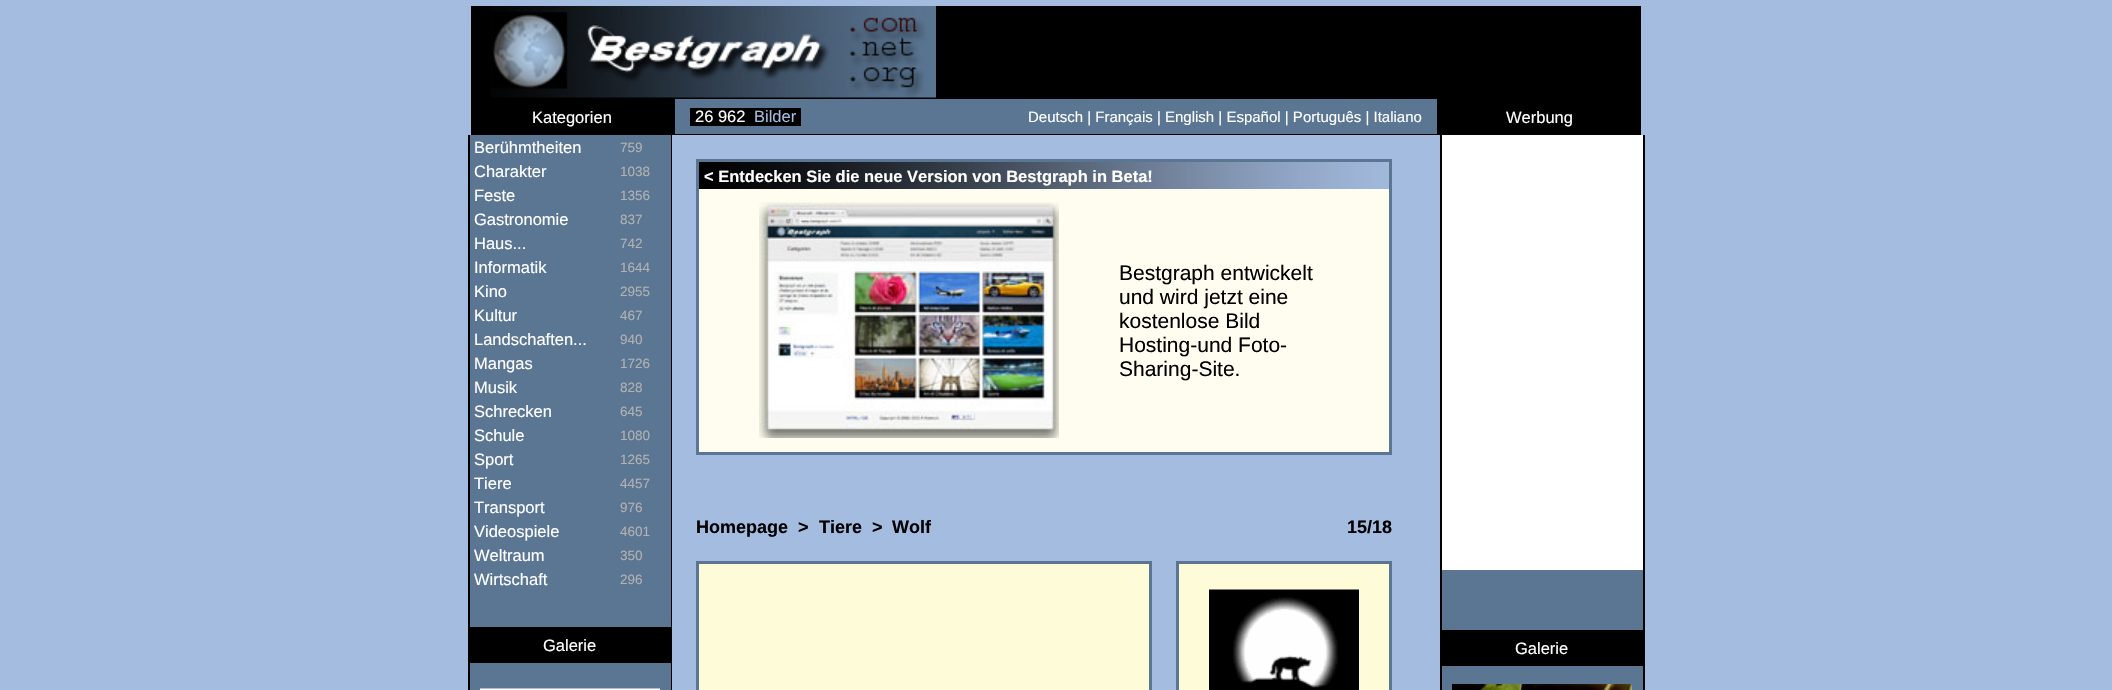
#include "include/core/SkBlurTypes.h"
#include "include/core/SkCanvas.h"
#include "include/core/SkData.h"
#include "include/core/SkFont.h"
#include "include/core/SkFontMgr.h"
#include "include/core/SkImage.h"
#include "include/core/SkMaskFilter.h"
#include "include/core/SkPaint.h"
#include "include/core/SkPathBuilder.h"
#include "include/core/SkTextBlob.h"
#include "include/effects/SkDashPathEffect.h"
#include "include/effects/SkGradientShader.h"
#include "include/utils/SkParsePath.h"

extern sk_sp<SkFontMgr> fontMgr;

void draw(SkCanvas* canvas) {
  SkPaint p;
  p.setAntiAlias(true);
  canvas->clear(SkColorSetRGB(164, 188, 224));
  p.setColor(SK_ColorBLACK);
  canvas->drawRect(SkRect::MakeLTRB(471, 6, 1641, 99), p);
  canvas->drawImageRect(SkImages::DeferredFromEncodedData(SkData::MakeFromFileName("images/1.png")), SkRect::MakeLTRB(491, 6, 936, 98), SkSamplingOptions());
  p.setColor(SkColorSetRGB(91, 118, 147));
  canvas->drawRect(SkRect::MakeLTRB(675, 99, 1437, 134), p);
  p.setColor(SK_ColorBLACK);
  canvas->drawRect(SkRect::MakeLTRB(471, 99, 675, 135), p);
  canvas->drawRect(SkRect::MakeLTRB(690, 108, 801, 126), p);
  canvas->drawRect(SkRect::MakeLTRB(1437, 99, 1641, 135), p);
  canvas->drawRect(SkRect::MakeLTRB(675, 134, 1437, 135), p);
  p.setColor(SkColorSetRGB(91, 118, 147));
  canvas->drawRect(SkRect::MakeLTRB(470, 135, 1643, 690), p);
  p.setColor(SK_ColorBLACK);
  canvas->drawRect(SkRect::MakeLTRB(671, 135, 672, 690), p);
  canvas->drawRect(SkRect::MakeLTRB(468, 135, 470, 690), p);
  canvas->drawRect(SkRect::MakeLTRB(470, 627, 671, 663), p);
  canvas->drawImageRect(SkImages::DeferredFromEncodedData(SkData::MakeFromFileName("images/2.png")), SkRect::MakeLTRB(480, 688, 660, 690), SkSamplingOptions());
  p.setColor(SkColorSetRGB(164, 188, 224));
  canvas->drawRect(SkRect::MakeLTRB(672, 135, 1440, 690), p);
  p.setColor(SkColorSetRGB(254, 253, 239));
  canvas->drawRect(SkRect::MakeLTRB(699, 189, 1389, 452), p);
  p.setStyle(SkPaint::kStroke_Style);
  p.setStrokeWidth(3);
  p.setColor(SkColorSetRGB(91, 118, 147));
  canvas->drawRect(SkRect::MakeLTRB(697.5f, 160.5f, 1390.5f, 453.5f), p);
  canvas->drawImageRect(SkImages::DeferredFromEncodedData(SkData::MakeFromFileName("images/3.png")), SkRect::MakeLTRB(699, 162, 1389, 189), SkSamplingOptions());
  canvas->drawImageRect(SkImages::DeferredFromEncodedData(SkData::MakeFromFileName("images/4.png")), SkRect::MakeLTRB(759, 202, 1059, 438), SkSamplingOptions());
  p.setStyle(SkPaint::kFill_Style);
  p.setColor(SkColorSetRGB(254, 251, 217));
  canvas->drawRect(SkRect::MakeLTRB(697.5f, 562.5f, 1150.5f, 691.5f), p);
  p.setStyle(SkPaint::kStroke_Style);
  p.setColor(SkColorSetRGB(91, 118, 147));
  canvas->drawRect(SkRect::MakeLTRB(697.5f, 562.5f, 1150.5f, 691.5f), p);
  p.setStyle(SkPaint::kFill_Style);
  p.setColor(SkColorSetRGB(254, 251, 217));
  canvas->drawRect(SkRect::MakeLTRB(1177.5f, 562.5f, 1390.5f, 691.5f), p);
  p.setStyle(SkPaint::kStroke_Style);
  p.setColor(SkColorSetRGB(91, 118, 147));
  canvas->drawRect(SkRect::MakeLTRB(1177.5f, 562.5f, 1390.5f, 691.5f), p);
  canvas->drawImageRect(SkImages::DeferredFromEncodedData(SkData::MakeFromFileName("images/5.png")), SkRect::MakeLTRB(1209, 589, 1359, 690), SkSamplingOptions());
  p.setStyle(SkPaint::kFill_Style);
  p.setColor(SK_ColorBLACK);
  canvas->drawRect(SkRect::MakeLTRB(1643, 135, 1645, 690), p);
  canvas->drawRect(SkRect::MakeLTRB(1440, 135, 1442, 690), p);
  p.setColor(SK_ColorWHITE);
  canvas->drawRect(SkRect::MakeLTRB(1442, 135, 1643, 570), p);
  p.setColor(SK_ColorBLACK);
  canvas->drawRect(SkRect::MakeLTRB(1442, 630, 1643, 666), p);
  canvas->drawImageRect(SkImages::DeferredFromEncodedData(SkData::MakeFromFileName("images/6.png")), SkRect::MakeLTRB(1452, 684, 1632, 690), SkSamplingOptions());
  SkFont font1(fontMgr->matchFamilyStyle("Liberation Sans", SkFontStyle::Normal()), 16.5f);
  font1.setSubpixel(true);
  p.setColor(SK_ColorWHITE);
  canvas->drawString("Kategorien", 532, 123, font1, p);
  canvas->drawString("26 962", 695, 122, font1, p);
  p.setColor(SkColorSetRGB(164, 188, 224));
  canvas->drawString("Bilder", 754, 122, font1, p);
  SkFont font2(fontMgr->matchFamilyStyle("Liberation Sans", SkFontStyle::Normal()), 15);
  font2.setSubpixel(true);
  p.setColor(SK_ColorWHITE);
  canvas->drawString("Deutsch | Français | English | Español | Português | Italiano", 1028, 122, font2, p);
  canvas->drawString("Werbung", 1506, 123, font1, p);
  canvas->drawString("Berühmtheiten", 474, 153, font1, p);
  SkFont font3(fontMgr->matchFamilyStyle("Liberation Sans", SkFontStyle::Normal()), 13.5f);
  font3.setSubpixel(true);
  p.setColor(SkColorSetRGB(178, 178, 178));
  canvas->drawString("759", 620, 152, font3, p);
  p.setColor(SK_ColorWHITE);
  canvas->drawString("Charakter", 474, 177, font1, p);
  p.setColor(SkColorSetRGB(178, 178, 178));
  canvas->drawString("1038", 620, 176, font3, p);
  p.setColor(SK_ColorWHITE);
  canvas->drawString("Feste", 474, 201, font1, p);
  p.setColor(SkColorSetRGB(178, 178, 178));
  canvas->drawString("1356", 620, 200, font3, p);
  p.setColor(SK_ColorWHITE);
  canvas->drawString("Gastronomie", 474, 225, font1, p);
  p.setColor(SkColorSetRGB(178, 178, 178));
  canvas->drawString("837", 620, 224, font3, p);
  p.setColor(SK_ColorWHITE);
  canvas->drawString("Haus...", 474, 249, font1, p);
  p.setColor(SkColorSetRGB(178, 178, 178));
  canvas->drawString("742", 620, 248, font3, p);
  p.setColor(SK_ColorWHITE);
  canvas->drawString("Informatik", 474, 273, font1, p);
  p.setColor(SkColorSetRGB(178, 178, 178));
  canvas->drawString("1644", 620, 272, font3, p);
  p.setColor(SK_ColorWHITE);
  canvas->drawString("Kino", 474, 297, font1, p);
  p.setColor(SkColorSetRGB(178, 178, 178));
  canvas->drawString("2955", 620, 296, font3, p);
  p.setColor(SK_ColorWHITE);
  canvas->drawString("Kultur", 474, 321, font1, p);
  p.setColor(SkColorSetRGB(178, 178, 178));
  canvas->drawString("467", 620, 320, font3, p);
  p.setColor(SK_ColorWHITE);
  canvas->drawString("Landschaften...", 474, 345, font1, p);
  p.setColor(SkColorSetRGB(178, 178, 178));
  canvas->drawString("940", 620, 344, font3, p);
  p.setColor(SK_ColorWHITE);
  canvas->drawString("Mangas", 474, 369, font1, p);
  p.setColor(SkColorSetRGB(178, 178, 178));
  canvas->drawString("1726", 620, 368, font3, p);
  p.setColor(SK_ColorWHITE);
  canvas->drawString("Musik", 474, 393, font1, p);
  p.setColor(SkColorSetRGB(178, 178, 178));
  canvas->drawString("828", 620, 392, font3, p);
  p.setColor(SK_ColorWHITE);
  canvas->drawString("Schrecken", 474, 417, font1, p);
  p.setColor(SkColorSetRGB(178, 178, 178));
  canvas->drawString("645", 620, 416, font3, p);
  p.setColor(SK_ColorWHITE);
  canvas->drawString("Schule", 474, 441, font1, p);
  p.setColor(SkColorSetRGB(178, 178, 178));
  canvas->drawString("1080", 620, 440, font3, p);
  p.setColor(SK_ColorWHITE);
  canvas->drawString("Sport", 474, 465, font1, p);
  p.setColor(SkColorSetRGB(178, 178, 178));
  canvas->drawString("1265", 620, 464, font3, p);
  p.setColor(SK_ColorWHITE);
  canvas->drawString("Tiere", 474, 489, font1, p);
  p.setColor(SkColorSetRGB(178, 178, 178));
  canvas->drawString("4457", 620, 488, font3, p);
  p.setColor(SK_ColorWHITE);
  canvas->drawString("Transport", 474, 513, font1, p);
  p.setColor(SkColorSetRGB(178, 178, 178));
  canvas->drawString("976", 620, 512, font3, p);
  p.setColor(SK_ColorWHITE);
  canvas->drawString("Videospiele", 474, 537, font1, p);
  p.setColor(SkColorSetRGB(178, 178, 178));
  canvas->drawString("4601", 620, 536, font3, p);
  p.setColor(SK_ColorWHITE);
  canvas->drawString("Weltraum", 474, 561, font1, p);
  p.setColor(SkColorSetRGB(178, 178, 178));
  canvas->drawString("350", 620, 560, font3, p);
  p.setColor(SK_ColorWHITE);
  canvas->drawString("Wirtschaft", 474, 585, font1, p);
  p.setColor(SkColorSetRGB(178, 178, 178));
  canvas->drawString("296", 620, 584, font3, p);
  p.setColor(SK_ColorWHITE);
  canvas->drawString("Galerie", 543, 651, font1, p);
  SkFont font4(fontMgr->matchFamilyStyle("Liberation Sans", SkFontStyle::Bold()), 16.5f);
  font4.setSubpixel(true);
  canvas->drawString("< Entdecken Sie die neue Version von Bestgraph in Beta!", 704, 182, font4, p);
  SkFont font5(fontMgr->matchFamilyStyle("Liberation Sans", SkFontStyle::Normal()), 21);
  font5.setSubpixel(true);
  p.setColor(SK_ColorBLACK);
  canvas->drawString("Bestgraph entwickelt", 1119, 280, font5, p);
  canvas->drawString("und wird jetzt eine", 1119, 304, font5, p);
  canvas->drawString("kostenlose Bild", 1119, 328, font5, p);
  canvas->drawString("Hosting-und Foto-", 1119, 352, font5, p);
  canvas->drawString("Sharing-Site.", 1119, 376, font5, p);
  SkFont font6(fontMgr->matchFamilyStyle("Liberation Sans", SkFontStyle::Bold()), 18);
  font6.setSubpixel(true);
  canvas->drawString("Homepage", 696, 533, font6, p);
  canvas->drawString(">", 798, 533, font6, p);
  canvas->drawString("Tiere", 819, 533, font6, p);
  canvas->drawString(">", 872, 533, font6, p);
  canvas->drawString("Wolf", 892, 533, font6, p);
  canvas->drawString("15/18", 1347, 533, font6, p);
  p.setColor(SK_ColorWHITE);
  canvas->drawString("Galerie", 1515, 654, font1, p);
}
